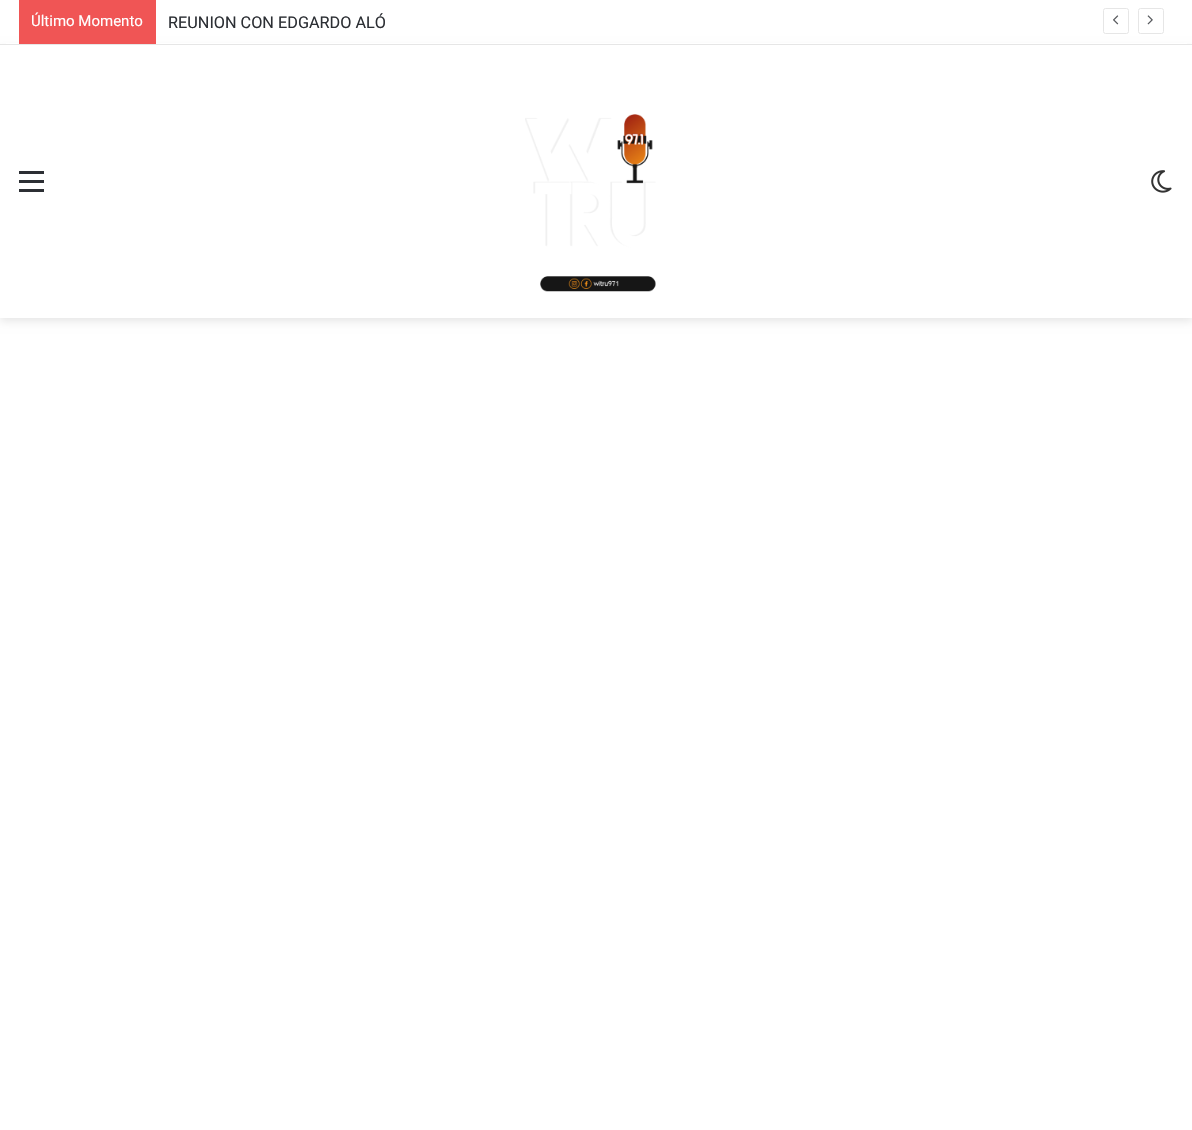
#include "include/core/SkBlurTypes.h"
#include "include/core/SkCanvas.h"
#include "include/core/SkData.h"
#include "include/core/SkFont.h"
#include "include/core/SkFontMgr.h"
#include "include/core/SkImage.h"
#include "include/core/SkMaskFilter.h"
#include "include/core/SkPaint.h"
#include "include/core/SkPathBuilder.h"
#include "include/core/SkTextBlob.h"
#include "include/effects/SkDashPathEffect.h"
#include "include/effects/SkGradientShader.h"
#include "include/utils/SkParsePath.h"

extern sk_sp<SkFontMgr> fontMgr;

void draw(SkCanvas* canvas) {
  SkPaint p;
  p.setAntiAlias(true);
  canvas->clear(SK_ColorWHITE);
  p.setColor(SkColorSetARGB(26, 0, 0, 0));
  p.setMaskFilter(SkMaskFilter::MakeBlur(kNormal_SkBlurStyle, 4.5f));
  canvas->drawRect(SkRect::MakeLTRB(0, 49, 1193, 321), p);
  p.setMaskFilter(nullptr);
  p.setColor(SK_ColorWHITE);
  canvas->drawRect(SkRect::MakeLTRB(6, 43, 1187, 44), p);
  p.setColor(SkColorSetRGB(230, 230, 230));
  canvas->drawRect(SkRect::MakeLTRB(0, 44, 1192, 45), p);
  p.setColor(SkColorSetRGB(240, 85, 85));
  canvas->drawRect(SkRect::MakeLTRB(19, 0, 156, 44), p);
  p.setStyle(SkPaint::kStroke_Style);
  p.setStrokeWidth(1);
  p.setColor(SkColorSetRGB(230, 230, 230));
  canvas->drawRoundRect(SkRect::MakeLTRB(1103.5f, 8.5f, 1128.5f, 33.5f), 2, 2, p);
  canvas->drawImageRect(SkImages::DeferredFromEncodedData(SkData::MakeFromFileName("images/1.png")), SkRect::MakeLTRB(1113, 15, 1119, 25), SkSamplingOptions());
  canvas->drawRoundRect(SkRect::MakeLTRB(1138.5f, 8.5f, 1163.5f, 33.5f), 2, 2, p);
  canvas->drawImageRect(SkImages::DeferredFromEncodedData(SkData::MakeFromFileName("images/2.png")), SkRect::MakeLTRB(1147, 15, 1153, 25), SkSamplingOptions());
  p.setStyle(SkPaint::kFill_Style);
  p.setColor(SK_ColorWHITE);
  canvas->drawRect(SkRect::MakeLTRB(0, 45, 1192, 318), p);
  p.setColor(SkColorSetRGB(44, 47, 52));
  canvas->drawRect(SkRect::MakeLTRB(19, 180, 44, 183), p);
  canvas->drawRect(SkRect::MakeLTRB(19, 171, 44, 174), p);
  canvas->drawRect(SkRect::MakeLTRB(19, 189, 44, 192), p);
  canvas->drawImageRect(SkImages::DeferredFromEncodedData(SkData::MakeFromFileName("images/3.png")), SkRect::MakeLTRB(525, 114, 656, 292), SkSamplingOptions());
  canvas->drawImageRect(SkImages::DeferredFromEncodedData(SkData::MakeFromFileName("images/4.png")), SkRect::MakeLTRB(1151, 170, 1172, 193), SkSamplingOptions());
  SkFont font1(fontMgr->matchFamilyStyle("Roboto", SkFontStyle::Normal()), 15);
  font1.setSubpixel(true);
  p.setColor(SK_ColorWHITE);
  canvas->drawString("Último Momento", 31, 26, font1, p);
  SkFont font2(fontMgr->matchFamilyStyle("Roboto", SkFontStyle::Normal()), 16.25f);
  font2.setSubpixel(true);
  p.setColor(SkColorSetRGB(44, 47, 52));
  canvas->drawString("REUNION CON EDGARDO ALÓ", 168, 28, font2, p);
}
